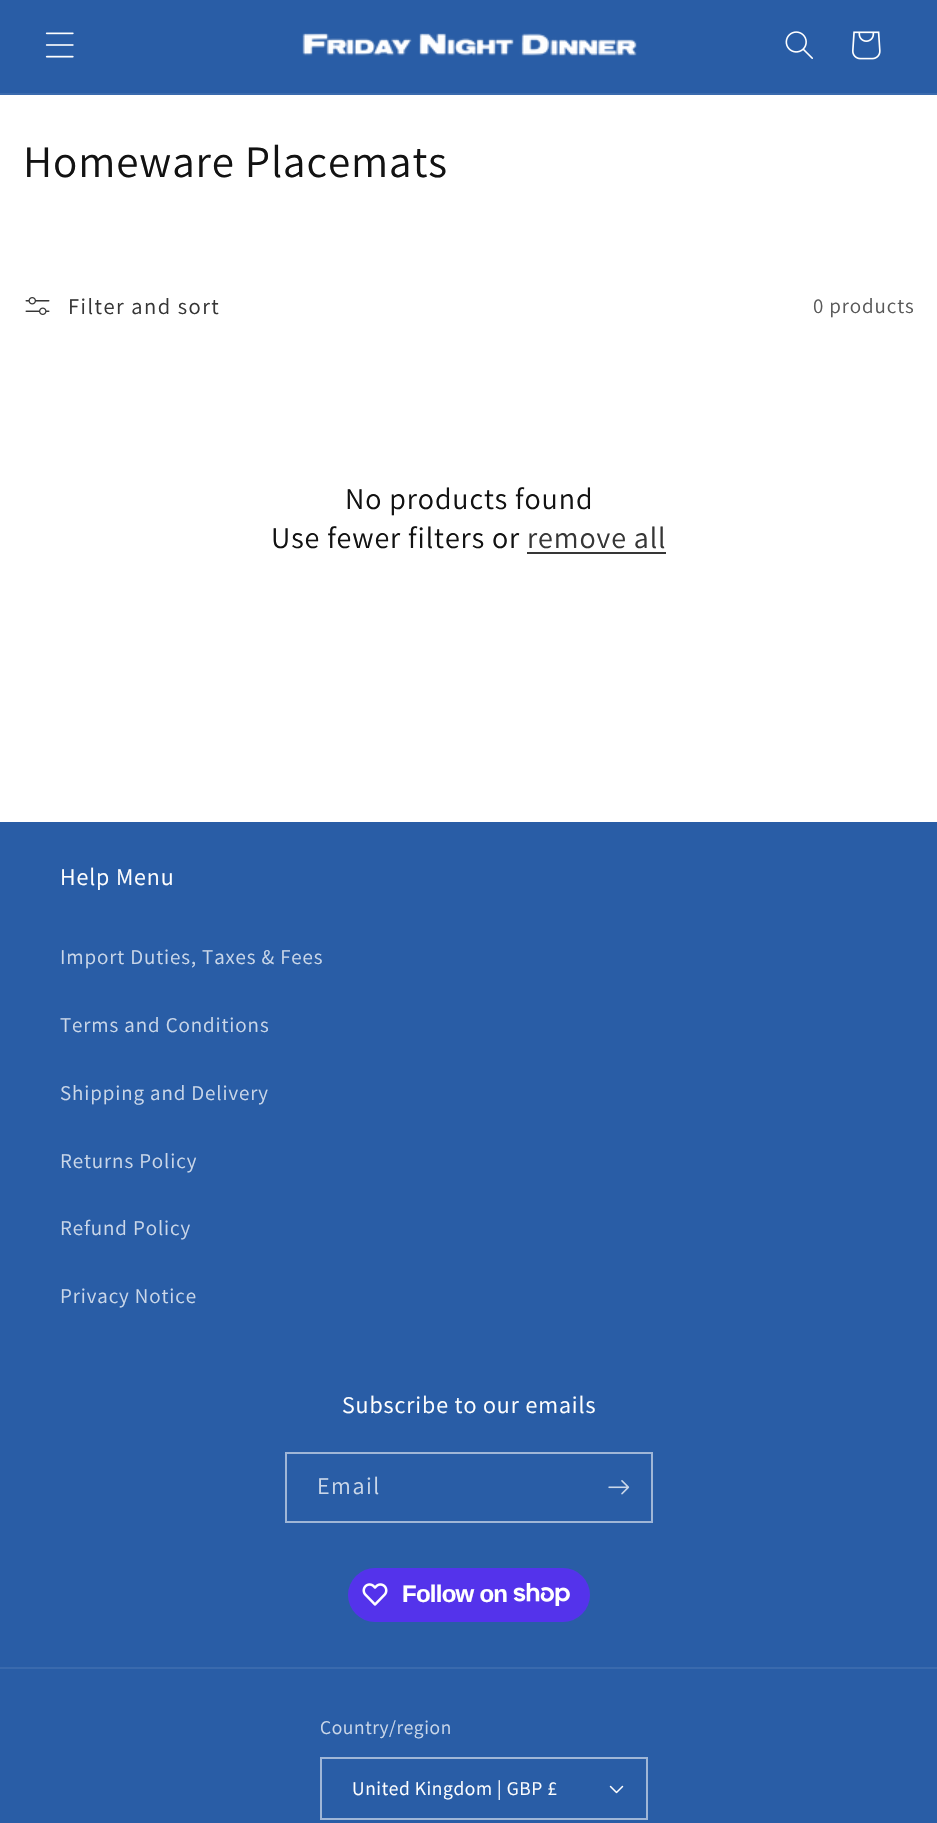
#include "include/core/SkBlurTypes.h"
#include "include/core/SkCanvas.h"
#include "include/core/SkData.h"
#include "include/core/SkFont.h"
#include "include/core/SkFontMgr.h"
#include "include/core/SkImage.h"
#include "include/core/SkMaskFilter.h"
#include "include/core/SkPaint.h"
#include "include/core/SkPathBuilder.h"
#include "include/core/SkTextBlob.h"
#include "include/effects/SkDashPathEffect.h"
#include "include/effects/SkGradientShader.h"
#include "include/utils/SkParsePath.h"

extern sk_sp<SkFontMgr> fontMgr;

void draw(SkCanvas* canvas) {
  SkPaint p;
  p.setAntiAlias(true);
  auto spacedText = [&](const char* s, float x, float y, const SkFont& font, const SkPaint& ink, float letter, float word) {
    std::vector<SkGlyphID> glyphs(font.countText(s, strlen(s), SkTextEncoding::kUTF8));
    std::vector<float> xs(glyphs.size());
    font.textToGlyphs(s, strlen(s), SkTextEncoding::kUTF8, glyphs);
    font.getXPos(glyphs, xs, x);
    float extra = 0;
    for (size_t i = 0; i < glyphs.size(); i++) {
      xs[i] += extra;
      extra += letter + word * (glyphs[i] == font.unicharToGlyph(' '));
    }
    canvas->drawTextBlob(SkTextBlob::MakeFromPosHGlyphs(glyphs, xs, y, font), 0, 0, ink);
  };
  canvas->clear(SK_ColorWHITE);
  p.setColor(SkColorSetRGB(41, 93, 166));
  canvas->drawRect(SkRect::MakeLTRB(0, 0, 937, 93), p);
  p.setColor(SkColorSetRGB(58, 106, 173));
  canvas->drawRect(SkRect::MakeLTRB(0, 93, 937, 95), p);
  canvas->drawImageRect(SkImages::DeferredFromEncodedData(SkData::MakeFromFileName("images/1.png")), SkRect::MakeLTRB(45, 32, 74, 58), SkSamplingOptions());
  canvas->drawImageRect(SkImages::DeferredFromEncodedData(SkData::MakeFromFileName("images/2.png")), SkRect::MakeLTRB(302, 33, 637, 56), SkSamplingOptions());
  canvas->drawImageRect(SkImages::DeferredFromEncodedData(SkData::MakeFromFileName("images/3.png")), SkRect::MakeLTRB(785, 31, 813, 59), SkSamplingOptions());
  canvas->drawImageRect(SkImages::DeferredFromEncodedData(SkData::MakeFromFileName("images/4.png")), SkRect::MakeLTRB(852, 31, 881, 60), SkSamplingOptions());
  canvas->drawImageRect(SkImages::DeferredFromEncodedData(SkData::MakeFromFileName("images/5.png")), SkRect::MakeLTRB(25, 297, 50, 315), SkSamplingOptions());
  p.setColor(SkColorSetRGB(54, 54, 54));
  canvas->drawRect(SkRect::MakeLTRB(527, 552, 666, 554), p);
  p.setColor(SkColorSetRGB(41, 93, 166));
  canvas->drawRect(SkRect::MakeLTRB(0, 822, 937, 1823), p);
  p.setStyle(SkPaint::kStroke_Style);
  p.setStrokeWidth(2);
  p.setColor(SkColorSetRGB(159, 182, 215));
  canvas->drawRect(SkRect::MakeLTRB(286, 1453, 652, 1522), p);
  canvas->drawImageRect(SkImages::DeferredFromEncodedData(SkData::MakeFromFileName("images/6.png")), SkRect::MakeLTRB(608, 1480, 630, 1495), SkSamplingOptions());
  p.setStyle(SkPaint::kFill_Style);
  p.setColor(SkColorSetRGB(84, 51, 235));
  canvas->drawRoundRect(SkRect::MakeLTRB(348, 1568, 590, 1622), 27, 27, p);
  canvas->drawImageRect(SkImages::DeferredFromEncodedData(SkData::MakeFromFileName("images/7.png")), SkRect::MakeLTRB(362, 1583, 388, 1606), SkSamplingOptions());
  canvas->drawImageRect(SkImages::DeferredFromEncodedData(SkData::MakeFromFileName("images/8.png")), SkRect::MakeLTRB(513, 1583, 570, 1606), SkSamplingOptions());
  p.setColor(SkColorSetRGB(58, 106, 173));
  canvas->drawRect(SkRect::MakeLTRB(0, 1667, 937, 1669), p);
  canvas->drawImageRect(SkImages::DeferredFromEncodedData(SkData::MakeFromFileName("images/9.png")), SkRect::MakeLTRB(609, 1785, 624, 1794), SkSamplingOptions());
  p.setStyle(SkPaint::kStroke_Style);
  p.setColor(SkColorSetRGB(159, 182, 215));
  canvas->drawRect(SkRect::MakeLTRB(321, 1758, 647, 1819), p);
  SkFont font1(fontMgr->matchFamilyStyle("Assistant", SkFontStyle::Normal()), 45);
  font1.setSubpixel(true);
  p.setStyle(SkPaint::kFill_Style);
  p.setColor(SkColorSetRGB(18, 18, 18));
  spacedText("Homeware Placemats", 23, 177, font1, p, 0.9f, 0);
  SkFont font2(fontMgr->matchFamilyStyle("Assistant", SkFontStyle::Normal()), 22.5f);
  font2.setSubpixel(true);
  p.setColor(SkColorSetRGB(54, 54, 54));
  spacedText("Filter and sort", 68, 314, font2, p, 1.5f, 0);
  SkFont font3(fontMgr->matchFamilyStyle("Assistant", SkFontStyle::Normal()), 21);
  font3.setSubpixel(true);
  p.setColor(SkColorSetRGB(89, 89, 89));
  spacedText("0 products", 813, 313, font3, p, 0.9f, 0);
  SkFont font4(fontMgr->matchFamilyStyle("Assistant", SkFontStyle::Normal()), 30);
  font4.setSubpixel(true);
  p.setColor(SkColorSetRGB(18, 18, 18));
  spacedText("No products found", 345, 509, font4, p, 0.9f, 0);
  spacedText("Use fewer filters or", 271, 548, font4, p, 0.9f, 0);
  p.setColor(SkColorSetRGB(54, 54, 54));
  spacedText("remove all", 527, 548, font4, p, 0.9f, 0);
  SkFont font5(fontMgr->matchFamilyStyle("Assistant", SkFontStyle::Normal()), 24);
  font5.setSubpixel(true);
  p.setColor(SK_ColorWHITE);
  spacedText("Help Menu", 60, 885, font5, p, 0.9f, 0);
  p.setColor(SkColorSetRGB(202, 215, 233));
  spacedText("Import Duties, Taxes & Fees", 60, 964, font3, p, 0.9f, 0);
  spacedText("Terms and Conditions", 60, 1032, font3, p, 0.9f, 0);
  spacedText("Shipping and Delivery", 60, 1100, font3, p, 0.9f, 0);
  spacedText("Returns Policy", 60, 1168, font3, p, 0.9f, 0);
  spacedText("Refund Policy", 60, 1235, font3, p, 0.9f, 0);
  spacedText("Privacy Notice", 60, 1303, font3, p, 0.9f, 0);
  p.setColor(SK_ColorWHITE);
  spacedText("Subscribe to our emails", 342, 1413, font5, p, 0.9f, 0);
  p.setColor(SkColorSetRGB(202, 215, 233));
  spacedText("Email", 317, 1494, font5, p, 1.5f, 0);
  SkFont font6(fontMgr->matchFamilyStyle("Liberation Sans", SkFontStyle::Bold()), 24);
  font6.setSubpixel(true);
  p.setColor(SK_ColorWHITE);
  spacedText("Follow on", 402, 1602, font6, p, -0.75f, 0);
  SkFont font7(fontMgr->matchFamilyStyle("Assistant", SkFontStyle::Normal()), 19.5f);
  font7.setSubpixel(true);
  p.setColor(SkColorSetRGB(202, 215, 233));
  spacedText("Country/region", 320, 1734, font7, p, 0.6f, 0);
  p.setColor(SK_ColorWHITE);
  spacedText("United Kingdom | GBP £", 352, 1795, font7, p, 0.6f, 0);
}
